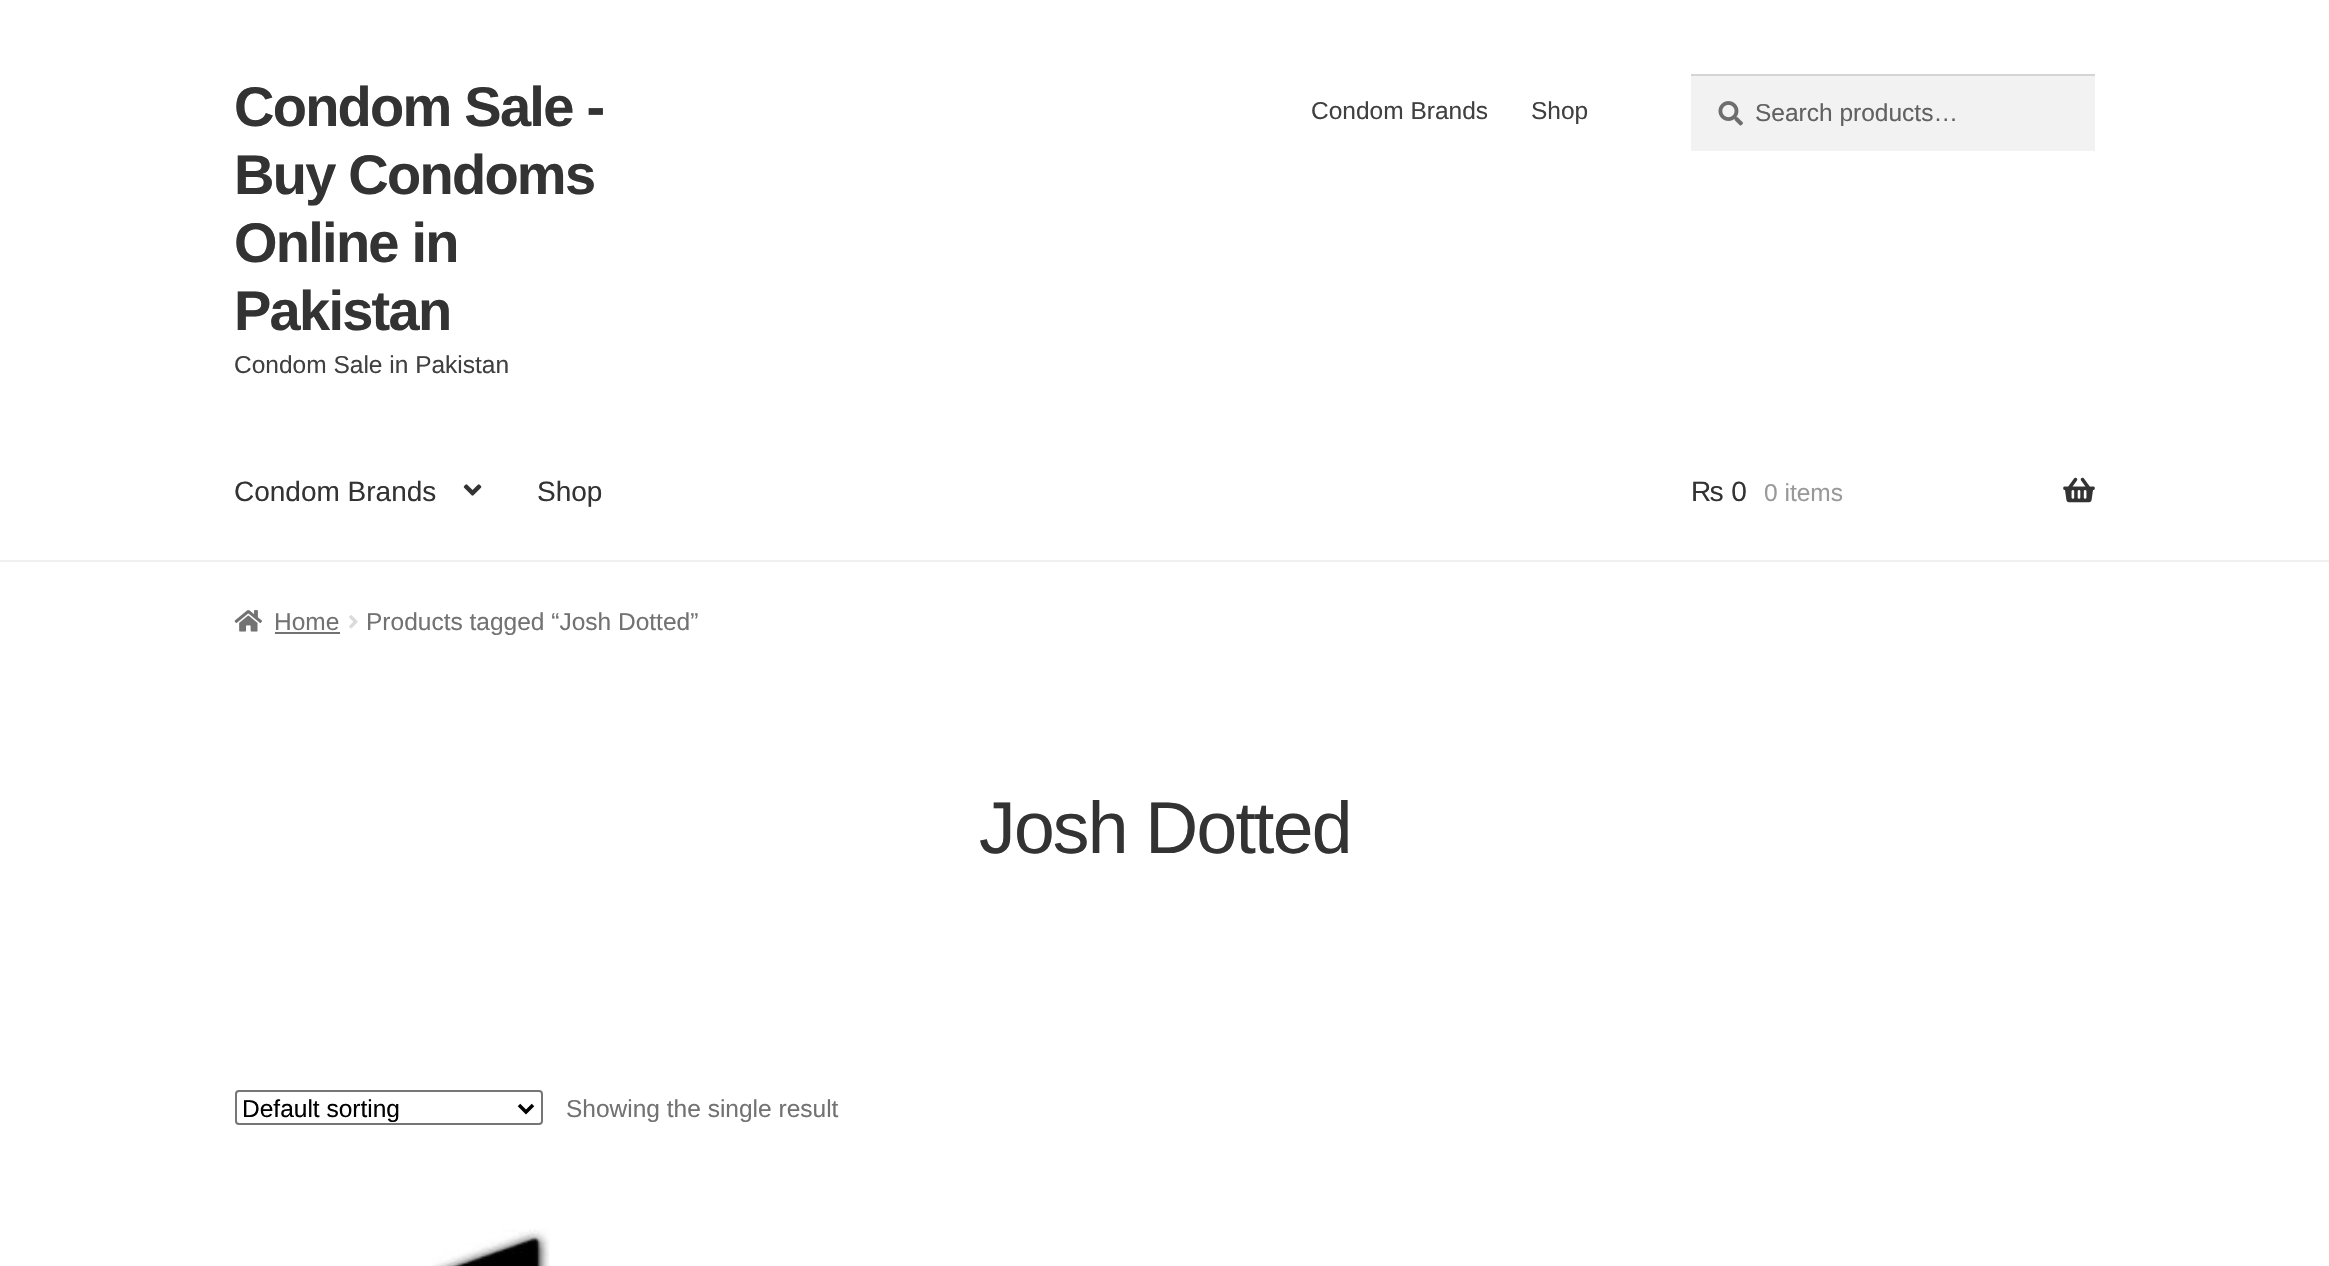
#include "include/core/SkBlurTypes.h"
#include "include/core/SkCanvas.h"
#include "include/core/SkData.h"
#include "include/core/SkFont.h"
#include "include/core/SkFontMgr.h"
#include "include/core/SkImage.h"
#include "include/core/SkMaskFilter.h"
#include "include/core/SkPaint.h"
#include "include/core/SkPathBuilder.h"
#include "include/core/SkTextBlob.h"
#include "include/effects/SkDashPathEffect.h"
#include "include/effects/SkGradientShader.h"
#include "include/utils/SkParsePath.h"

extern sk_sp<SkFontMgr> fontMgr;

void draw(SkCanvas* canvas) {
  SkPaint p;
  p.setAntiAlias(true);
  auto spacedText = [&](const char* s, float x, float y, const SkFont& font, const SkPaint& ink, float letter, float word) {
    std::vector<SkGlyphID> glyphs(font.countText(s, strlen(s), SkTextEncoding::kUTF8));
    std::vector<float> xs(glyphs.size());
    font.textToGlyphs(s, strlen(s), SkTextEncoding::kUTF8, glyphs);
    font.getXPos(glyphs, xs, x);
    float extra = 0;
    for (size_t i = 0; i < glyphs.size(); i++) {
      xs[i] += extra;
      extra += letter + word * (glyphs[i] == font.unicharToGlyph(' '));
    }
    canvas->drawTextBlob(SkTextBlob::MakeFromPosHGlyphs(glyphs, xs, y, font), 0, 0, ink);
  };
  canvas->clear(SK_ColorWHITE);
  p.setColor(SkColorSetRGB(240, 240, 240));
  canvas->drawRect(SkRect::MakeLTRB(0, 560, 2329, 562), p);
  p.setColor(SkColorSetRGB(242, 242, 242));
  canvas->drawRect(SkRect::MakeLTRB(1691, 76, 2095, 151), p);
  canvas->drawImageRect(SkImages::DeferredFromEncodedData(SkData::MakeFromFileName("images/1.png")), SkRect::MakeLTRB(1718, 101, 1743, 126), SkSamplingOptions());
  p.setColor(SkColorSetRGB(212, 212, 212));
  canvas->drawRect(SkRect::MakeLTRB(1691, 74, 2095, 76), p);
  canvas->drawImageRect(SkImages::DeferredFromEncodedData(SkData::MakeFromFileName("images/2.png")), SkRect::MakeLTRB(463, 484, 482, 496), SkSamplingOptions());
  canvas->drawImageRect(SkImages::DeferredFromEncodedData(SkData::MakeFromFileName("images/3.png")), SkRect::MakeLTRB(2063, 477, 2095, 503), SkSamplingOptions());
  canvas->drawImageRect(SkImages::DeferredFromEncodedData(SkData::MakeFromFileName("images/4.png")), SkRect::MakeLTRB(234, 610, 262, 632), SkSamplingOptions());
  p.setColor(SkColorSetRGB(114, 114, 114));
  canvas->drawRect(SkRect::MakeLTRB(275, 632, 340, 634), p);
  canvas->drawImageRect(SkImages::DeferredFromEncodedData(SkData::MakeFromFileName("images/5.png")), SkRect::MakeLTRB(349, 615, 358, 629), SkSamplingOptions());
  p.setStyle(SkPaint::kStroke_Style);
  p.setStrokeWidth(2);
  p.setColor(SkColorSetRGB(118, 118, 118));
  canvas->drawRoundRect(SkRect::MakeLTRB(236, 1091, 542, 1124), 3, 3, p);
  p.setStrokeWidth(3.5f);
  p.setColor(SK_ColorBLACK);
  canvas->drawPath(SkPathBuilder().moveTo(519, 1105).lineTo(526, 1112).lineTo(533, 1105).detach(), p);
  canvas->drawImageRect(SkImages::DeferredFromEncodedData(SkData::MakeFromFileName("images/6.png")), SkRect::MakeLTRB(431, 1229, 550, 1266), SkSamplingOptions());
  SkFont font1(fontMgr->matchFamilyStyle("Liberation Sans", SkFontStyle::Bold()), 56);
  font1.setSubpixel(true);
  p.setStyle(SkPaint::kFill_Style);
  p.setColor(SkColorSetRGB(51, 51, 51));
  spacedText("Condom Sale -", 234, 126, font1, p, -1.75f, 0);
  spacedText("Buy Condoms", 234, 194, font1, p, -1.75f, 0);
  spacedText("Online in", 234, 262, font1, p, -1.75f, 0);
  spacedText("Pakistan", 234, 330, font1, p, -1.75f, 0);
  SkFont font2(fontMgr->matchFamilyStyle("Liberation Sans", SkFontStyle::Normal()), 24.5f);
  font2.setSubpixel(true);
  p.setColor(SkColorSetRGB(64, 64, 64));
  canvas->drawString("Condom Sale in Pakistan", 234, 373, font2, p);
  canvas->drawString("Condom Brands", 1311, 119, font2, p);
  canvas->drawString("Shop", 1531, 119, font2, p);
  p.setColor(SkColorSetRGB(97, 97, 97));
  canvas->drawString("Search products…", 1755, 121, font2, p);
  SkFont font3(fontMgr->matchFamilyStyle("Liberation Sans", SkFontStyle::Normal()), 28);
  font3.setSubpixel(true);
  p.setColor(SkColorSetRGB(51, 51, 51));
  canvas->drawString("Condom Brands", 234, 501, font3, p);
  canvas->drawString("Shop", 537, 501, font3, p);
  canvas->drawString("₨ 0", 1691, 501, font3, p);
  p.setColor(SkColorSetRGB(153, 153, 153));
  canvas->drawString("0 items", 1764, 501, font2, p);
  p.setColor(SkColorSetRGB(114, 114, 114));
  canvas->drawString("Home", 274, 630, font2, p);
  canvas->drawString("Products tagged “Josh Dotted”", 366, 630, font2, p);
  SkFont font4(fontMgr->matchFamilyStyle("Liberation Sans", SkFontStyle::Normal()), 73.25f);
  font4.setSubpixel(true);
  p.setColor(SkColorSetRGB(51, 51, 51));
  spacedText("Josh Dotted", 979, 853, font4, p, -1.75f, 0);
  p.setColor(SK_ColorBLACK);
  canvas->drawString("Default sorting", 242, 1117, font2, p);
  p.setColor(SkColorSetRGB(114, 114, 114));
  canvas->drawString("Showing the single result", 566, 1117, font2, p);
}
